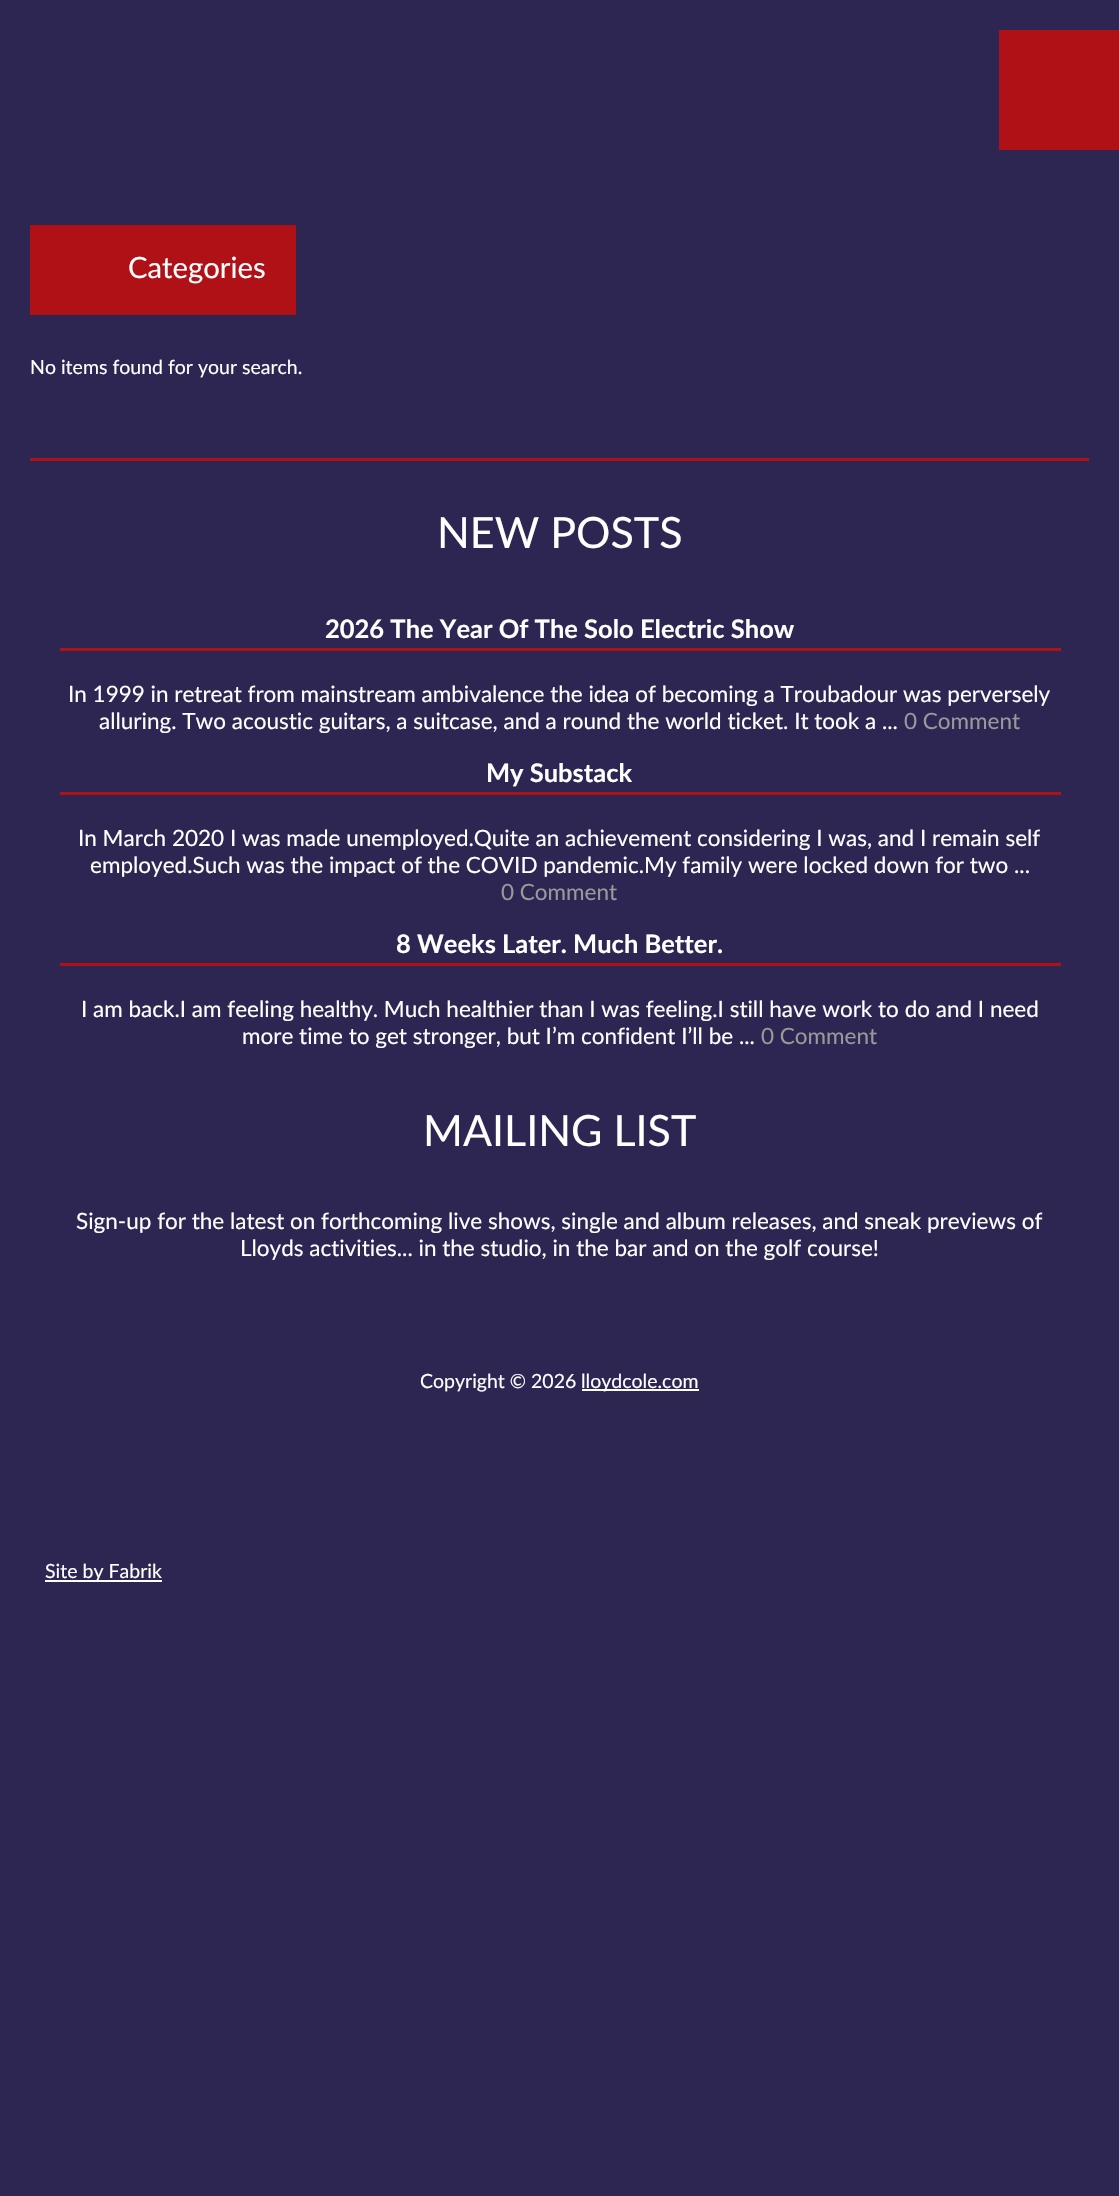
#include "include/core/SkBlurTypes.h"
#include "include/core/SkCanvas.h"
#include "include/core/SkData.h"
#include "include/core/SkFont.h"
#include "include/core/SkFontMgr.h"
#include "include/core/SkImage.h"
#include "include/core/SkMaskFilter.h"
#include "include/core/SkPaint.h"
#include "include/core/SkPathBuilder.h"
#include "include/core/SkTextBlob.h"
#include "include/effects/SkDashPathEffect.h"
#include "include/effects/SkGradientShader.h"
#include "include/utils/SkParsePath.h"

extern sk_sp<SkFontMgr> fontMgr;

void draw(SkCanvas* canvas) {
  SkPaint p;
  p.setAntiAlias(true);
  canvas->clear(SkColorSetRGB(45, 38, 83));
  p.setColor(SkColorSetRGB(176, 17, 22));
  canvas->drawRect(SkRect::MakeLTRB(999, 30, 1119, 150), p);
  canvas->drawRect(SkRect::MakeLTRB(30, 225, 296, 315), p);
  canvas->drawRect(SkRect::MakeLTRB(30, 458, 1089, 461), p);
  canvas->drawRect(SkRect::MakeLTRB(60, 648, 1061, 651), p);
  canvas->drawRect(SkRect::MakeLTRB(60, 792, 1061, 795), p);
  canvas->drawRect(SkRect::MakeLTRB(60, 963, 1061, 966), p);
  p.setColor(SK_ColorWHITE);
  canvas->drawRect(SkRect::MakeLTRB(582, 1389, 699, 1391), p);
  canvas->drawRect(SkRect::MakeLTRB(45, 1580, 162, 1582), p);
  SkFont font1(fontMgr->matchFamilyStyle("Lato", SkFontStyle::Normal()), 29.25f);
  font1.setSubpixel(true);
  canvas->drawString("Categories", 128, 278, font1, p);
  SkFont font2(fontMgr->matchFamilyStyle("Lato", SkFontStyle::Normal()), 19.5f);
  font2.setSubpixel(true);
  canvas->drawString("No items found for your search.", 30, 374, font2, p);
  SkFont font3(fontMgr->matchFamilyStyle("Lato", SkFontStyle::Normal()), 43);
  font3.setSubpixel(true);
  canvas->drawString("NEW POSTS", 437, 548, font3, p);
  SkFont font4(fontMgr->matchFamilyStyle("Lato", SkFontStyle::Bold()), 25.5f);
  font4.setSubpixel(true);
  canvas->drawString("2026 The Year Of The Solo Electric Show", 325, 638, font4, p);
  SkFont font5(fontMgr->matchFamilyStyle("Lato", SkFontStyle::Normal()), 22.5f);
  font5.setSubpixel(true);
  canvas->drawString("In 1999 in retreat from mainstream ambivalence the idea of becoming a Troubadour was perversely", 68, 702, font5, p);
  canvas->drawString("alluring. Two acoustic guitars, a suitcase, and a round the world ticket. It took a ...", 99, 729, font5, p);
  p.setColor(SkColorSetRGB(153, 153, 153));
  canvas->drawString("0 Comment", 904, 729, font5, p);
  p.setColor(SK_ColorWHITE);
  canvas->drawString("My Substack", 486, 782, font4, p);
  canvas->drawString("In March 2020 I was made unemployed.Quite an achievement considering I was, and I remain self", 78, 846, font5, p);
  canvas->drawString("employed.Such was the impact of the COVID pandemic.My family were locked down for two ...", 90, 873, font5, p);
  p.setColor(SkColorSetRGB(153, 153, 153));
  canvas->drawString("0 Comment", 501, 900, font5, p);
  p.setColor(SK_ColorWHITE);
  canvas->drawString("8 Weeks Later. Much Better.", 396, 953, font4, p);
  canvas->drawString("I am back.I am feeling healthy. Much healthier than I was feeling.I still have work to do and I need", 81, 1017, font5, p);
  canvas->drawString("more time to get stronger, but I’m confident I’ll be ...", 242, 1044, font5, p);
  p.setColor(SkColorSetRGB(153, 153, 153));
  canvas->drawString("0 Comment", 761, 1044, font5, p);
  p.setColor(SK_ColorWHITE);
  canvas->drawString("MAILING LIST", 423, 1146, font3, p);
  canvas->drawString("Sign-up for the latest on forthcoming live shows, single and album releases, and sneak previews of", 76, 1229, font5, p);
  canvas->drawString("Lloyds activities... in the studio, in the bar and on the golf course!", 240, 1256, font5, p);
  canvas->drawString("Copyright © 2026", 420, 1388, font2, p);
  canvas->drawString("lloydcole.com", 581, 1388, font2, p);
  canvas->drawString("Site by Fabrik", 45, 1578, font2, p);
}
